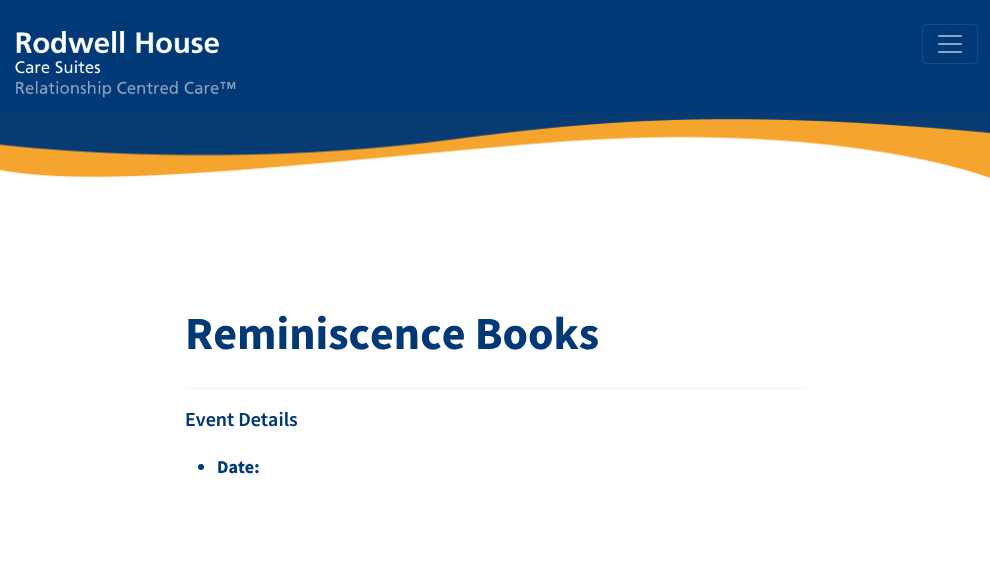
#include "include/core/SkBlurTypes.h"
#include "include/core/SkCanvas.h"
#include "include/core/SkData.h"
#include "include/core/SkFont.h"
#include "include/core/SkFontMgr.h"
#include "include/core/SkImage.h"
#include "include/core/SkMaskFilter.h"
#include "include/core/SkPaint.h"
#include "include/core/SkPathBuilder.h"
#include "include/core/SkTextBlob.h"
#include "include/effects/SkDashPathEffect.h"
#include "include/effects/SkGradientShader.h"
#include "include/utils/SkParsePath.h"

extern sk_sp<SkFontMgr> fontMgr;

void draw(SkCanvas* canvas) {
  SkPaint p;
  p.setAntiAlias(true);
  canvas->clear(SK_ColorWHITE);
  p.setColor(SkColorSetRGB(1, 57, 118));
  canvas->drawRect(SkRect::MakeLTRB(0, 0, 990, 112), p);
  canvas->drawImageRect(SkImages::DeferredFromEncodedData(SkData::MakeFromFileName("images/1.png")), SkRect::MakeLTRB(15, 31, 236, 98), SkSamplingOptions());
  p.setStyle(SkPaint::kStroke_Style);
  p.setStrokeWidth(1);
  p.setColor(SkColorSetRGB(26, 77, 132));
  canvas->drawRoundRect(SkRect::MakeLTRB(922.5f, 24.5f, 977.5f, 63.5f), 3.5f, 3.5f, p);
  canvas->drawImageRect(SkImages::DeferredFromEncodedData(SkData::MakeFromFileName("images/2.png")), SkRect::MakeLTRB(938, 35, 962, 53), SkSamplingOptions());
  canvas->drawImageRect(SkImages::DeferredFromEncodedData(SkData::MakeFromFileName("images/3.png")), SkRect::MakeLTRB(0, 112, 990, 179), SkSamplingOptions());
  p.setStyle(SkPaint::kFill_Style);
  p.setColor(SkColorSetRGB(243, 245, 248));
  canvas->drawRect(SkRect::MakeLTRB(185, 388, 805, 389), p);
  p.setColor(SkColorSetRGB(1, 57, 118));
  canvas->drawCircle(201, 467, 3, p);
  SkFont font1(fontMgr->matchFamilyStyle("Source Sans Pro", SkFontStyle::Bold()), 46);
  font1.setSubpixel(true);
  canvas->drawString("Reminiscence Books", 185, 349, font1, p);
  SkFont font2(fontMgr->matchFamilyStyle("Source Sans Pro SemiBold", SkFontStyle(600, SkFontStyle::kNormal_Width, SkFontStyle::kUpright_Slant)), 20);
  font2.setSubpixel(true);
  canvas->drawString("Event Details", 185, 426, font2, p);
  SkFont font3(fontMgr->matchFamilyStyle("Source Sans Pro", SkFontStyle::Bold()), 18);
  font3.setSubpixel(true);
  canvas->drawString("Date:", 217, 473, font3, p);
}
